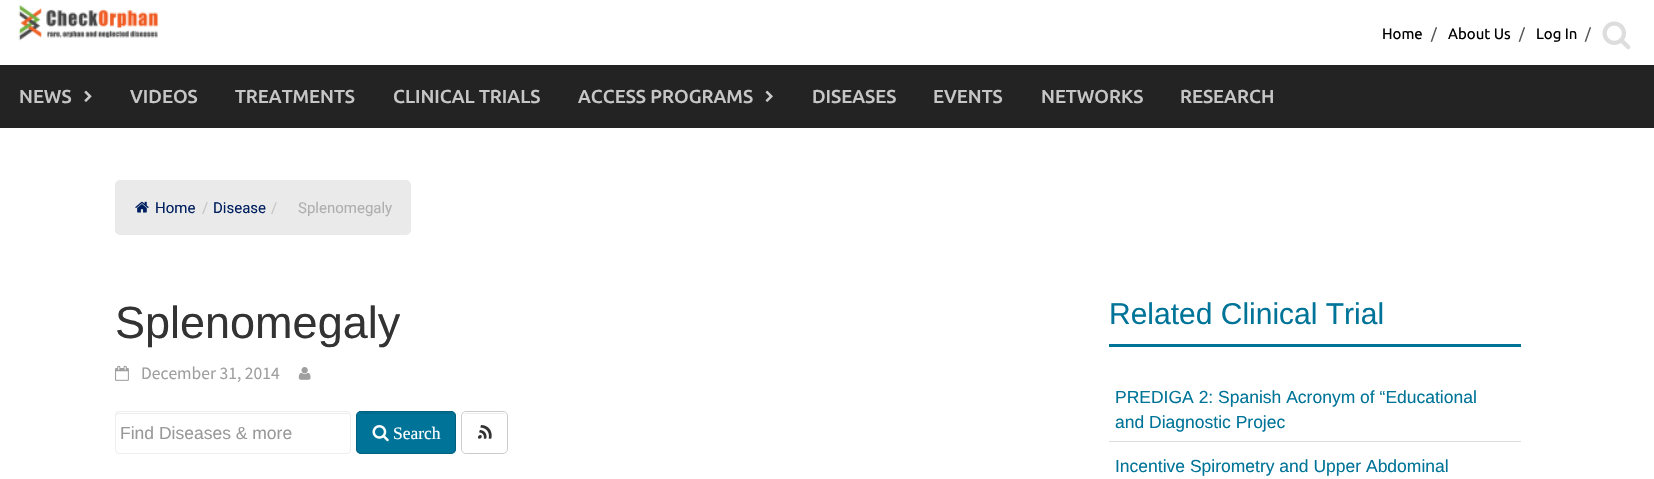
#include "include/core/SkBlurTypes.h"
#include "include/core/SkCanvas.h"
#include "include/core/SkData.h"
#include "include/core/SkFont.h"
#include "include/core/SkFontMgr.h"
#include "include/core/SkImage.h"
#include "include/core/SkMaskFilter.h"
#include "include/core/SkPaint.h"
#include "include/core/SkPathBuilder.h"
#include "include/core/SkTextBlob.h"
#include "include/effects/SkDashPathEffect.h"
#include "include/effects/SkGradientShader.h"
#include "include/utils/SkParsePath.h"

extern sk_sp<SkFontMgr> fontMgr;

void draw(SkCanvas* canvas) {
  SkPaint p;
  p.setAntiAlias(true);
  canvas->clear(SK_ColorWHITE);
  canvas->drawImageRect(SkImages::DeferredFromEncodedData(SkData::MakeFromFileName("images/1.png")), SkRect::MakeLTRB(18, 5, 159, 41), SkSamplingOptions());
  canvas->drawImageRect(SkImages::DeferredFromEncodedData(SkData::MakeFromFileName("images/2.png")), SkRect::MakeLTRB(1602, 21, 1631, 50), SkSamplingOptions());
  p.setColor(SkColorSetRGB(35, 35, 35));
  canvas->drawRect(SkRect::MakeLTRB(0, 65, 1654, 128), p);
  canvas->drawImageRect(SkImages::DeferredFromEncodedData(SkData::MakeFromFileName("images/3.png")), SkRect::MakeLTRB(84, 90, 92, 102), SkSamplingOptions());
  canvas->drawImageRect(SkImages::DeferredFromEncodedData(SkData::MakeFromFileName("images/4.png")), SkRect::MakeLTRB(765, 90, 773, 102), SkSamplingOptions());
  p.setColor(SkColorSetRGB(234, 234, 234));
  canvas->drawRoundRect(SkRect::MakeLTRB(115, 180, 411, 235), 5, 5, p);
  canvas->drawImageRect(SkImages::DeferredFromEncodedData(SkData::MakeFromFileName("images/5.png")), SkRect::MakeLTRB(135, 201, 149, 213), SkSamplingOptions());
  canvas->drawImageRect(SkImages::DeferredFromEncodedData(SkData::MakeFromFileName("images/6.png")), SkRect::MakeLTRB(115, 365, 129, 381), SkSamplingOptions());
  canvas->drawImageRect(SkImages::DeferredFromEncodedData(SkData::MakeFromFileName("images/7.png")), SkRect::MakeLTRB(298, 367, 311, 380), SkSamplingOptions());
  p.setColor(SkColorSetRGB(236, 236, 236));
  canvas->drawPath(SkPathBuilder().moveTo(119, 414).lineTo(348, 414).cubicTo(349, 414, 350, 415, 350, 416).cubicTo(350, 414, 349, 413, 348, 413).lineTo(118, 413).lineTo(116, 414).lineTo(116, 416).cubicTo(116, 415, 117, 414, 119, 414).close().detach(), p);
  p.setStyle(SkPaint::kStroke_Style);
  p.setStrokeWidth(1);
  p.setColor(SkColorSetRGB(238, 238, 238));
  canvas->drawRoundRect(SkRect::MakeLTRB(115.5f, 411.5f, 350.5f, 453.5f), 3.5f, 3.5f, p);
  p.setStyle(SkPaint::kFill_Style);
  p.setColor(SkColorSetRGB(0, 116, 152));
  canvas->drawRoundRect(SkRect::MakeLTRB(356, 411, 456, 454), 5, 5, p);
  p.setColor(SkColorSetRGB(0, 107, 141));
  canvas->drawPath(SkPathBuilder().moveTo(361, 414).lineTo(451, 414).cubicTo(453, 414, 455, 415, 455, 418).cubicTo(455, 409, 441, 413, 436, 413).lineTo(377, 413).cubicTo(372, 413, 358, 409, 358, 418).cubicTo(358, 415, 359, 414, 361, 414).close().detach(), p);
  p.setStyle(SkPaint::kStroke_Style);
  p.setColor(SkColorSetRGB(0, 96, 126));
  canvas->drawRoundRect(SkRect::MakeLTRB(356.5f, 411.5f, 455.5f, 453.5f), 4.5f, 4.5f, p);
  canvas->drawImageRect(SkImages::DeferredFromEncodedData(SkData::MakeFromFileName("images/8.png")), SkRect::MakeLTRB(372, 425, 389, 442), SkSamplingOptions());
  p.setStyle(SkPaint::kFill_Style);
  p.setColor(SkColorSetRGB(236, 236, 236));
  canvas->drawPath(SkPathBuilder().moveTo(466, 414).lineTo(502, 414).cubicTo(505, 414, 506, 415, 506, 418).lineTo(506, 417).cubicTo(506, 415, 504, 413, 502, 413).lineTo(467, 413).cubicTo(466, 413, 465, 414, 464, 414).close().detach(), p);
  p.setStyle(SkPaint::kStroke_Style);
  p.setColor(SkColorSetRGB(204, 204, 204));
  canvas->drawRoundRect(SkRect::MakeLTRB(461.5f, 411.5f, 507.5f, 453.5f), 4.5f, 4.5f, p);
  canvas->drawImageRect(SkImages::DeferredFromEncodedData(SkData::MakeFromFileName("images/9.png")), SkRect::MakeLTRB(477, 425, 492, 439), SkSamplingOptions());
  p.setStyle(SkPaint::kFill_Style);
  p.setColor(SkColorSetRGB(0, 116, 152));
  canvas->drawRect(SkRect::MakeLTRB(1109, 344, 1521, 347), p);
  p.setColor(SkColorSetRGB(221, 221, 221));
  canvas->drawRect(SkRect::MakeLTRB(1109, 441, 1521, 442), p);
  SkFont font1(fontMgr->matchFamilyStyle("Ubuntu", SkFontStyle::Normal()), 15);
  font1.setSubpixel(true);
  p.setColor(SK_ColorBLACK);
  canvas->drawString("Home", 1382, 39, font1, p);
  p.setColor(SkColorSetRGB(85, 85, 85));
  canvas->drawString("/", 1431, 39, font1, p);
  p.setColor(SK_ColorBLACK);
  canvas->drawString("About Us", 1448, 39, font1, p);
  p.setColor(SkColorSetRGB(85, 85, 85));
  canvas->drawString("/", 1519, 39, font1, p);
  p.setColor(SK_ColorBLACK);
  canvas->drawString("Log In", 1536, 39, font1, p);
  p.setColor(SkColorSetRGB(85, 85, 85));
  canvas->drawString("/", 1585, 39, font1, p);
  SkFont font2(fontMgr->matchFamilyStyle("Ubuntu", SkFontStyle(500, SkFontStyle::kNormal_Width, SkFontStyle::kUpright_Slant)), 18.75f);
  font2.setSubpixel(true);
  p.setColor(SkColorSetRGB(198, 198, 198));
  canvas->drawString("NEWS", 19, 103, font2, p);
  canvas->drawString("VIDEOS", 130, 103, font2, p);
  canvas->drawString("TREATMENTS", 235, 103, font2, p);
  canvas->drawString("CLINICAL TRIALS", 393, 103, font2, p);
  canvas->drawString("ACCESS PROGRAMS", 578, 103, font2, p);
  canvas->drawString("DISEASES", 812, 103, font2, p);
  canvas->drawString("EVENTS", 933, 103, font2, p);
  canvas->drawString("NETWORKS", 1041, 103, font2, p);
  canvas->drawString("RESEARCH", 1180, 103, font2, p);
  SkFont font3(fontMgr->matchFamilyStyle("Roboto", SkFontStyle::Normal()), 15);
  font3.setSubpixel(true);
  p.setColor(SkColorSetRGB(0, 31, 95));
  canvas->drawString("Home", 155, 213, font3, p);
  p.setColor(SkColorSetRGB(198, 198, 198));
  canvas->drawString("/", 202, 213, font3, p);
  p.setColor(SkColorSetRGB(0, 31, 95));
  canvas->drawString("Disease", 213, 213, font3, p);
  p.setColor(SkColorSetRGB(198, 198, 198));
  canvas->drawString("/", 271, 213, font3, p);
  p.setColor(SkColorSetRGB(175, 175, 175));
  canvas->drawString("Splenomegaly", 298, 213, font3, p);
  SkFont font4(fontMgr->matchFamilyStyle("Liberation Sans", SkFontStyle::Normal()), 45);
  font4.setSubpixel(true);
  p.setColor(SkColorSetRGB(51, 51, 51));
  canvas->drawString("Splenomegaly", 115, 338, font4, p);
  SkFont font5(fontMgr->matchFamilyStyle("Source Sans Pro", SkFontStyle::Normal()), 17.5f);
  font5.setSubpixel(true);
  p.setColor(SkColorSetRGB(159, 159, 159));
  canvas->drawString("December 31, 2014", 141, 379, font5, p);
  SkFont font6(fontMgr->matchFamilyStyle("Liberation Sans", SkFontStyle::Normal()), 17.5f);
  font6.setSubpixel(true);
  p.setColor(SkColorSetRGB(153, 153, 153));
  canvas->drawString("Find Diseases & more", 120, 439, font6, p);
  SkFont font7(fontMgr->matchFamilyStyle("Liberation Serif", SkFontStyle::Normal()), 17.5f);
  font7.setSubpixel(true);
  p.setColor(SK_ColorWHITE);
  canvas->drawString("Search", 393, 439, font7, p);
  SkFont font8(fontMgr->matchFamilyStyle("Liberation Sans", SkFontStyle::Normal()), 30);
  font8.setSubpixel(true);
  p.setColor(SkColorSetRGB(0, 116, 152));
  canvas->drawString("Related Clinical Trial", 1109, 324, font8, p);
  canvas->drawString("PREDIGA 2: Spanish Acronym of “Educational", 1115, 403, font6, p);
  canvas->drawString("and Diagnostic Projec", 1115, 428, font6, p);
  canvas->drawString("Incentive Spirometry and Upper Abdominal", 1115, 472, font6, p);
}
